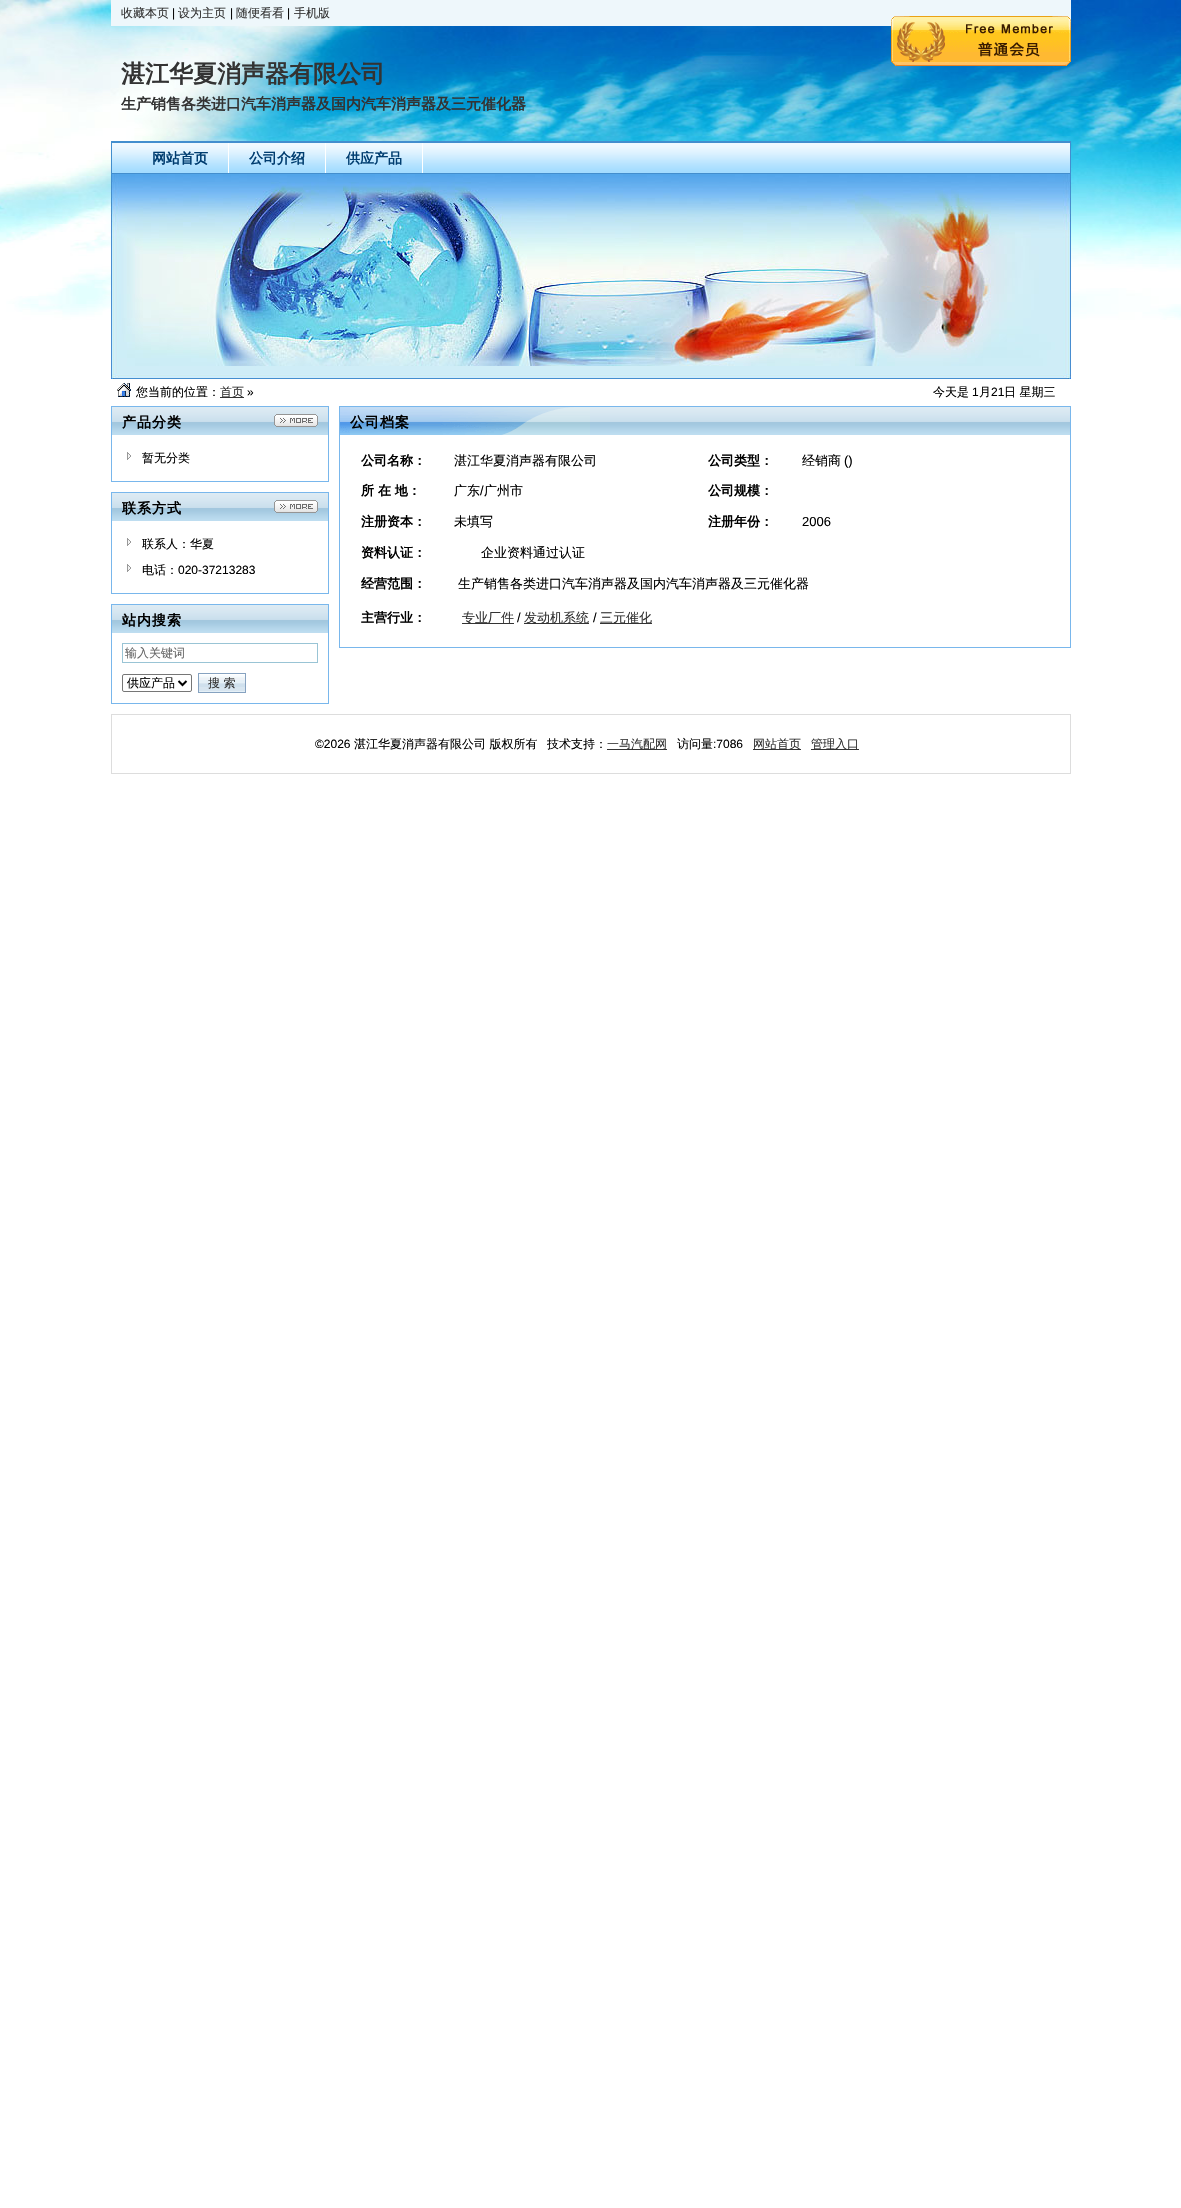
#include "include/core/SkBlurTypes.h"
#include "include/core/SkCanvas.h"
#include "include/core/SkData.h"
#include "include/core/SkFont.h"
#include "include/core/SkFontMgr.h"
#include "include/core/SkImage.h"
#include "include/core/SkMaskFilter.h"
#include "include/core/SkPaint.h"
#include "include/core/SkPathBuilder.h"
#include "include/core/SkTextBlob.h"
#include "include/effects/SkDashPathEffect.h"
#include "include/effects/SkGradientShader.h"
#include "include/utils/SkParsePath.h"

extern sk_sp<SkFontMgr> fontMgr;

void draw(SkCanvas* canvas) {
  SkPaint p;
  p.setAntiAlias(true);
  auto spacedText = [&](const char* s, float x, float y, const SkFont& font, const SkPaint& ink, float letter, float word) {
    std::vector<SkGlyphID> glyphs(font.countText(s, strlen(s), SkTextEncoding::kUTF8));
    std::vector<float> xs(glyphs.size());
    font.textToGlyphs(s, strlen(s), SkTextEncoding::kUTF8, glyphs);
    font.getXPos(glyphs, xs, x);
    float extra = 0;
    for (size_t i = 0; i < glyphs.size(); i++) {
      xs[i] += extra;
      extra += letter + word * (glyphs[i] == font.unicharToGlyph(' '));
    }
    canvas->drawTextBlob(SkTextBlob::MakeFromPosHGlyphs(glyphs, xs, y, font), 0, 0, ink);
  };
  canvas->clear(SK_ColorWHITE);
  canvas->drawImageRect(SkImages::DeferredFromEncodedData(SkData::MakeFromFileName("images/1.png")), SkRect::MakeLTRB(0, 0, 1181, 320), SkSamplingOptions());
  p.setColor(SkColorSetRGB(238, 247, 251));
  canvas->drawRect(SkRect::MakeLTRB(111, 0, 1071, 26), p);
  canvas->drawImageRect(SkImages::DeferredFromEncodedData(SkData::MakeFromFileName("images/2.png")), SkRect::MakeLTRB(892, 16, 1070, 66), SkSamplingOptions());
  canvas->drawImageRect(SkImages::DeferredFromEncodedData(SkData::MakeFromFileName("images/3.png")), SkRect::MakeLTRB(891, 19, 1071, 65), SkSamplingOptions());
  canvas->drawImageRect(SkImages::DeferredFromEncodedData(SkData::MakeFromFileName("images/4.png")), SkRect::MakeLTRB(112, 143, 1070, 173), SkSamplingOptions());
  p.setColor(SkColorSetRGB(67, 142, 206));
  canvas->drawRect(SkRect::MakeLTRB(111, 141, 1071, 143), p);
  canvas->drawRect(SkRect::MakeLTRB(1070, 141, 1071, 174), p);
  canvas->drawRect(SkRect::MakeLTRB(111, 173, 1071, 174), p);
  canvas->drawRect(SkRect::MakeLTRB(111, 141, 112, 174), p);
  p.setColor(SK_ColorWHITE);
  canvas->drawRect(SkRect::MakeLTRB(228, 143, 229, 173), p);
  canvas->drawRect(SkRect::MakeLTRB(325, 143, 326, 173), p);
  canvas->drawRect(SkRect::MakeLTRB(422, 143, 423, 173), p);
  canvas->drawImageRect(SkImages::DeferredFromEncodedData(SkData::MakeFromFileName("images/5.png")), SkRect::MakeLTRB(111, 174, 1071, 379), SkSamplingOptions());
  canvas->drawImageRect(SkImages::DeferredFromEncodedData(SkData::MakeFromFileName("images/6.png")), SkRect::MakeLTRB(117, 383, 131, 397), SkSamplingOptions());
  p.setColor(SkColorSetRGB(51, 51, 51));
  canvas->drawRect(SkRect::MakeLTRB(220, 397, 244, 398), p);
  canvas->drawImageRect(SkImages::DeferredFromEncodedData(SkData::MakeFromFileName("images/7.png")), SkRect::MakeLTRB(112, 407, 328, 435), SkSamplingOptions());
  p.setColor(SkColorSetRGB(121, 183, 236));
  canvas->drawRect(SkRect::MakeLTRB(111, 406, 329, 407), p);
  canvas->drawRect(SkRect::MakeLTRB(328, 406, 329, 482), p);
  canvas->drawRect(SkRect::MakeLTRB(111, 406, 112, 435), p);
  canvas->drawImageRect(SkImages::DeferredFromEncodedData(SkData::MakeFromFileName("images/8.png")), SkRect::MakeLTRB(274, 414, 318, 427), SkSamplingOptions());
  canvas->drawRect(SkRect::MakeLTRB(111, 481, 329, 482), p);
  canvas->drawRect(SkRect::MakeLTRB(111, 435, 112, 482), p);
  canvas->drawImageRect(SkImages::DeferredFromEncodedData(SkData::MakeFromFileName("images/9.png")), SkRect::MakeLTRB(127, 452, 131, 460), SkSamplingOptions());
  canvas->drawImageRect(SkImages::DeferredFromEncodedData(SkData::MakeFromFileName("images/7.png")), SkRect::MakeLTRB(112, 493, 328, 521), SkSamplingOptions());
  canvas->drawRect(SkRect::MakeLTRB(111, 492, 329, 493), p);
  canvas->drawRect(SkRect::MakeLTRB(328, 492, 329, 594), p);
  canvas->drawRect(SkRect::MakeLTRB(111, 492, 112, 521), p);
  canvas->drawImageRect(SkImages::DeferredFromEncodedData(SkData::MakeFromFileName("images/8.png")), SkRect::MakeLTRB(274, 500, 318, 513), SkSamplingOptions());
  canvas->drawRect(SkRect::MakeLTRB(111, 593, 329, 594), p);
  canvas->drawRect(SkRect::MakeLTRB(111, 521, 112, 594), p);
  canvas->drawImageRect(SkImages::DeferredFromEncodedData(SkData::MakeFromFileName("images/9.png")), SkRect::MakeLTRB(127, 538, 131, 546), SkSamplingOptions());
  canvas->drawImageRect(SkImages::DeferredFromEncodedData(SkData::MakeFromFileName("images/9.png")), SkRect::MakeLTRB(127, 564, 131, 572), SkSamplingOptions());
  canvas->drawImageRect(SkImages::DeferredFromEncodedData(SkData::MakeFromFileName("images/7.png")), SkRect::MakeLTRB(112, 605, 328, 633), SkSamplingOptions());
  canvas->drawRect(SkRect::MakeLTRB(111, 604, 329, 605), p);
  canvas->drawRect(SkRect::MakeLTRB(328, 604, 329, 704), p);
  canvas->drawRect(SkRect::MakeLTRB(111, 604, 112, 633), p);
  canvas->drawRect(SkRect::MakeLTRB(111, 703, 329, 704), p);
  canvas->drawRect(SkRect::MakeLTRB(111, 633, 112, 704), p);
  p.setStyle(SkPaint::kStroke_Style);
  p.setStrokeWidth(1);
  p.setColor(SkColorSetRGB(153, 196, 213));
  canvas->drawRect(SkRect::MakeLTRB(122.5f, 643.5f, 317.5f, 662.5f), p);
  p.setColor(SkColorSetRGB(118, 118, 118));
  canvas->drawRoundRect(SkRect::MakeLTRB(122.5f, 674.5f, 191.5f, 691.5f), 1.5f, 1.5f, p);
  p.setStrokeWidth(2);
  p.setColor(SK_ColorBLACK);
  canvas->drawPath(SkPathBuilder().moveTo(178.5f, 681).lineTo(182.5f, 685).lineTo(186.5f, 681).detach(), p);
  canvas->drawImageRect(SkImages::DeferredFromEncodedData(SkData::MakeFromFileName("images/10.png")), SkRect::MakeLTRB(199, 675, 245, 692), SkSamplingOptions());
  p.setStrokeWidth(1);
  p.setColor(SkColorSetRGB(134, 162, 192));
  canvas->drawRect(SkRect::MakeLTRB(198.5f, 673.5f, 245.5f, 692.5f), p);
  canvas->drawImageRect(SkImages::DeferredFromEncodedData(SkData::MakeFromFileName("images/11.png")), SkRect::MakeLTRB(340, 407, 1070, 435), SkSamplingOptions());
  p.setStyle(SkPaint::kFill_Style);
  p.setColor(SkColorSetRGB(121, 183, 236));
  canvas->drawRect(SkRect::MakeLTRB(339, 406, 1071, 407), p);
  canvas->drawRect(SkRect::MakeLTRB(1070, 406, 1071, 648), p);
  canvas->drawRect(SkRect::MakeLTRB(339, 406, 340, 435), p);
  canvas->drawRect(SkRect::MakeLTRB(339, 647, 1071, 648), p);
  canvas->drawRect(SkRect::MakeLTRB(339, 435, 340, 648), p);
  p.setColor(SkColorSetRGB(51, 51, 51));
  canvas->drawRect(SkRect::MakeLTRB(462, 623, 514, 624), p);
  canvas->drawRect(SkRect::MakeLTRB(524, 623, 589, 624), p);
  canvas->drawRect(SkRect::MakeLTRB(600, 623, 652, 624), p);
  p.setStyle(SkPaint::kStroke_Style);
  p.setColor(SkColorSetRGB(221, 221, 221));
  canvas->drawRect(SkRect::MakeLTRB(111.5f, 714.5f, 1070.5f, 773.5f), p);
  p.setStyle(SkPaint::kFill_Style);
  p.setColor(SkColorSetRGB(51, 51, 51));
  canvas->drawRect(SkRect::MakeLTRB(607, 749, 667, 750), p);
  canvas->drawRect(SkRect::MakeLTRB(753, 749, 801, 750), p);
  canvas->drawRect(SkRect::MakeLTRB(811, 749, 859, 750), p);
  SkFont font1(fontMgr->matchFamilyStyle("WenQuanYi Zen Hei", SkFontStyle(500, SkFontStyle::kNormal_Width, SkFontStyle::kUpright_Slant)), 12);
  font1.setSubpixel(true);
  canvas->drawString("收藏本页", 121, 17, font1, p);
  SkFont font2(fontMgr->matchFamilyStyle("Liberation Sans", SkFontStyle::Normal()), 12);
  font2.setSubpixel(true);
  p.setColor(SK_ColorBLACK);
  canvas->drawString("|", 172, 17, font2, p);
  p.setColor(SkColorSetRGB(51, 51, 51));
  canvas->drawString("设为主页", 178, 17, font1, p);
  p.setColor(SK_ColorBLACK);
  canvas->drawString("|", 230, 17, font2, p);
  p.setColor(SkColorSetRGB(51, 51, 51));
  canvas->drawString("随便看看", 236, 17, font1, p);
  p.setColor(SK_ColorBLACK);
  canvas->drawString("|", 287, 17, font2, p);
  p.setColor(SkColorSetRGB(51, 51, 51));
  canvas->drawString("手机版", 294, 17, font1, p);
  SkFont font3(fontMgr->matchFamilyStyle("WenQuanYi Zen Hei", SkFontStyle::Bold()), 24);
  font3.setSubpixel(true);
  canvas->drawString("湛江华夏消声器有限公司", 121, 82, font3, p);
  SkFont font4(fontMgr->matchFamilyStyle("WenQuanYi Zen Hei", SkFontStyle::Bold()), 15);
  font4.setSubpixel(true);
  canvas->drawString("生产销售各类进口汽车消声器及国内汽车消声器及三元催化器", 121, 109, font4, p);
  SkFont font5(fontMgr->matchFamilyStyle("WenQuanYi Zen Hei", SkFontStyle::Bold()), 14);
  font5.setSubpixel(true);
  p.setColor(SkColorSetRGB(0, 61, 112));
  canvas->drawString("网站首页", 152, 163, font5, p);
  canvas->drawString("公司介绍", 249, 163, font5, p);
  canvas->drawString("供应产品", 346, 163, font5, p);
  p.setColor(SK_ColorBLACK);
  canvas->drawString("您当前的位置：", 136, 396, font1, p);
  p.setColor(SkColorSetRGB(51, 51, 51));
  canvas->drawString("首页", 220, 396, font1, p);
  p.setColor(SK_ColorBLACK);
  canvas->drawString("»", 247, 396, font2, p);
  canvas->drawString("今天是", 933, 396, font1, p);
  canvas->drawString("1", 972, 396, font2, p);
  canvas->drawString("月", 979, 396, font1, p);
  canvas->drawString("21", 991, 396, font2, p);
  canvas->drawString("日 星期三", 1004, 396, font1, p);
  spacedText("产品分类", 122, 427, font5, p, 1, 0);
  canvas->drawString("暂无分类", 142, 462, font1, p);
  spacedText("联系方式", 122, 513, font5, p, 1, 0);
  canvas->drawString("联系人：华夏", 142, 548, font1, p);
  canvas->drawString("电话：", 142, 574, font1, p);
  canvas->drawString("020-37213283", 178, 574, font2, p);
  spacedText("站内搜索", 122, 625, font5, p, 1, 0);
  p.setColor(SkColorSetRGB(102, 102, 102));
  canvas->drawString("输入关键词", 125, 657, font1, p);
  p.setColor(SK_ColorBLACK);
  canvas->drawString("供应产品", 127, 687, font1, p);
  p.setColor(SkColorSetRGB(51, 51, 51));
  canvas->drawString("搜 索", 208, 687, font1, p);
  p.setColor(SK_ColorBLACK);
  spacedText("公司档案", 350, 427, font5, p, 1, 0);
  SkFont font6(fontMgr->matchFamilyStyle("WenQuanYi Zen Hei", SkFontStyle::Bold()), 13);
  font6.setSubpixel(true);
  canvas->drawString("公司名称：", 361, 465, font6, p);
  SkFont font7(fontMgr->matchFamilyStyle("WenQuanYi Zen Hei", SkFontStyle(500, SkFontStyle::kNormal_Width, SkFontStyle::kUpright_Slant)), 13);
  font7.setSubpixel(true);
  canvas->drawString("湛江华夏消声器有限公司", 454, 465, font7, p);
  canvas->drawString("公司类型：", 708, 465, font6, p);
  canvas->drawString("经销商", 802, 465, font7, p);
  SkFont font8(fontMgr->matchFamilyStyle("Liberation Sans", SkFontStyle::Normal()), 13);
  font8.setSubpixel(true);
  canvas->drawString("()", 844, 465, font8, p);
  canvas->drawString("所 在 地：", 361, 495, font6, p);
  canvas->drawString("广东 广州市", 454, 495, font7, p);
  canvas->drawString("/", 480, 495, font8, p);
  canvas->drawString("公司规模：", 708, 495, font6, p);
  canvas->drawString("注册资本：", 361, 526, font6, p);
  canvas->drawString("未填写", 454, 526, font7, p);
  canvas->drawString("注册年份：", 708, 526, font6, p);
  canvas->drawString("2006", 802, 526, font8, p);
  canvas->drawString("资料认证：", 361, 557, font6, p);
  canvas->drawString("企业资料通过认证", 481, 557, font7, p);
  canvas->drawString("经营范围：", 361, 588, font6, p);
  canvas->drawString("生产销售各类进口汽车消声器及国内汽车消声器及三元催化器", 458, 588, font7, p);
  canvas->drawString("主营行业：", 361, 622, font6, p);
  p.setColor(SkColorSetRGB(51, 51, 51));
  canvas->drawString("专业厂件", 462, 622, font7, p);
  p.setColor(SK_ColorBLACK);
  canvas->drawString("/", 517, 622, font8, p);
  p.setColor(SkColorSetRGB(51, 51, 51));
  canvas->drawString("发动机系统", 524, 622, font7, p);
  p.setColor(SK_ColorBLACK);
  canvas->drawString("/", 593, 622, font8, p);
  p.setColor(SkColorSetRGB(51, 51, 51));
  canvas->drawString("三元催化", 600, 622, font7, p);
  p.setColor(SK_ColorBLACK);
  canvas->drawString("©2026", 315, 748, font2, p);
  canvas->drawString("湛江华夏消声器有限公司 版权所有", 354, 748, font1, p);
  canvas->drawString("技术支持：", 547, 748, font1, p);
  p.setColor(SkColorSetRGB(51, 51, 51));
  canvas->drawString("一马汽配网", 607, 748, font1, p);
  p.setColor(SK_ColorBLACK);
  canvas->drawString("访问量", 677, 748, font1, p);
  canvas->drawString(":7086", 713, 748, font2, p);
  p.setColor(SkColorSetRGB(51, 51, 51));
  canvas->drawString("网站首页", 753, 748, font1, p);
  canvas->drawString("管理入口", 811, 748, font1, p);
}
